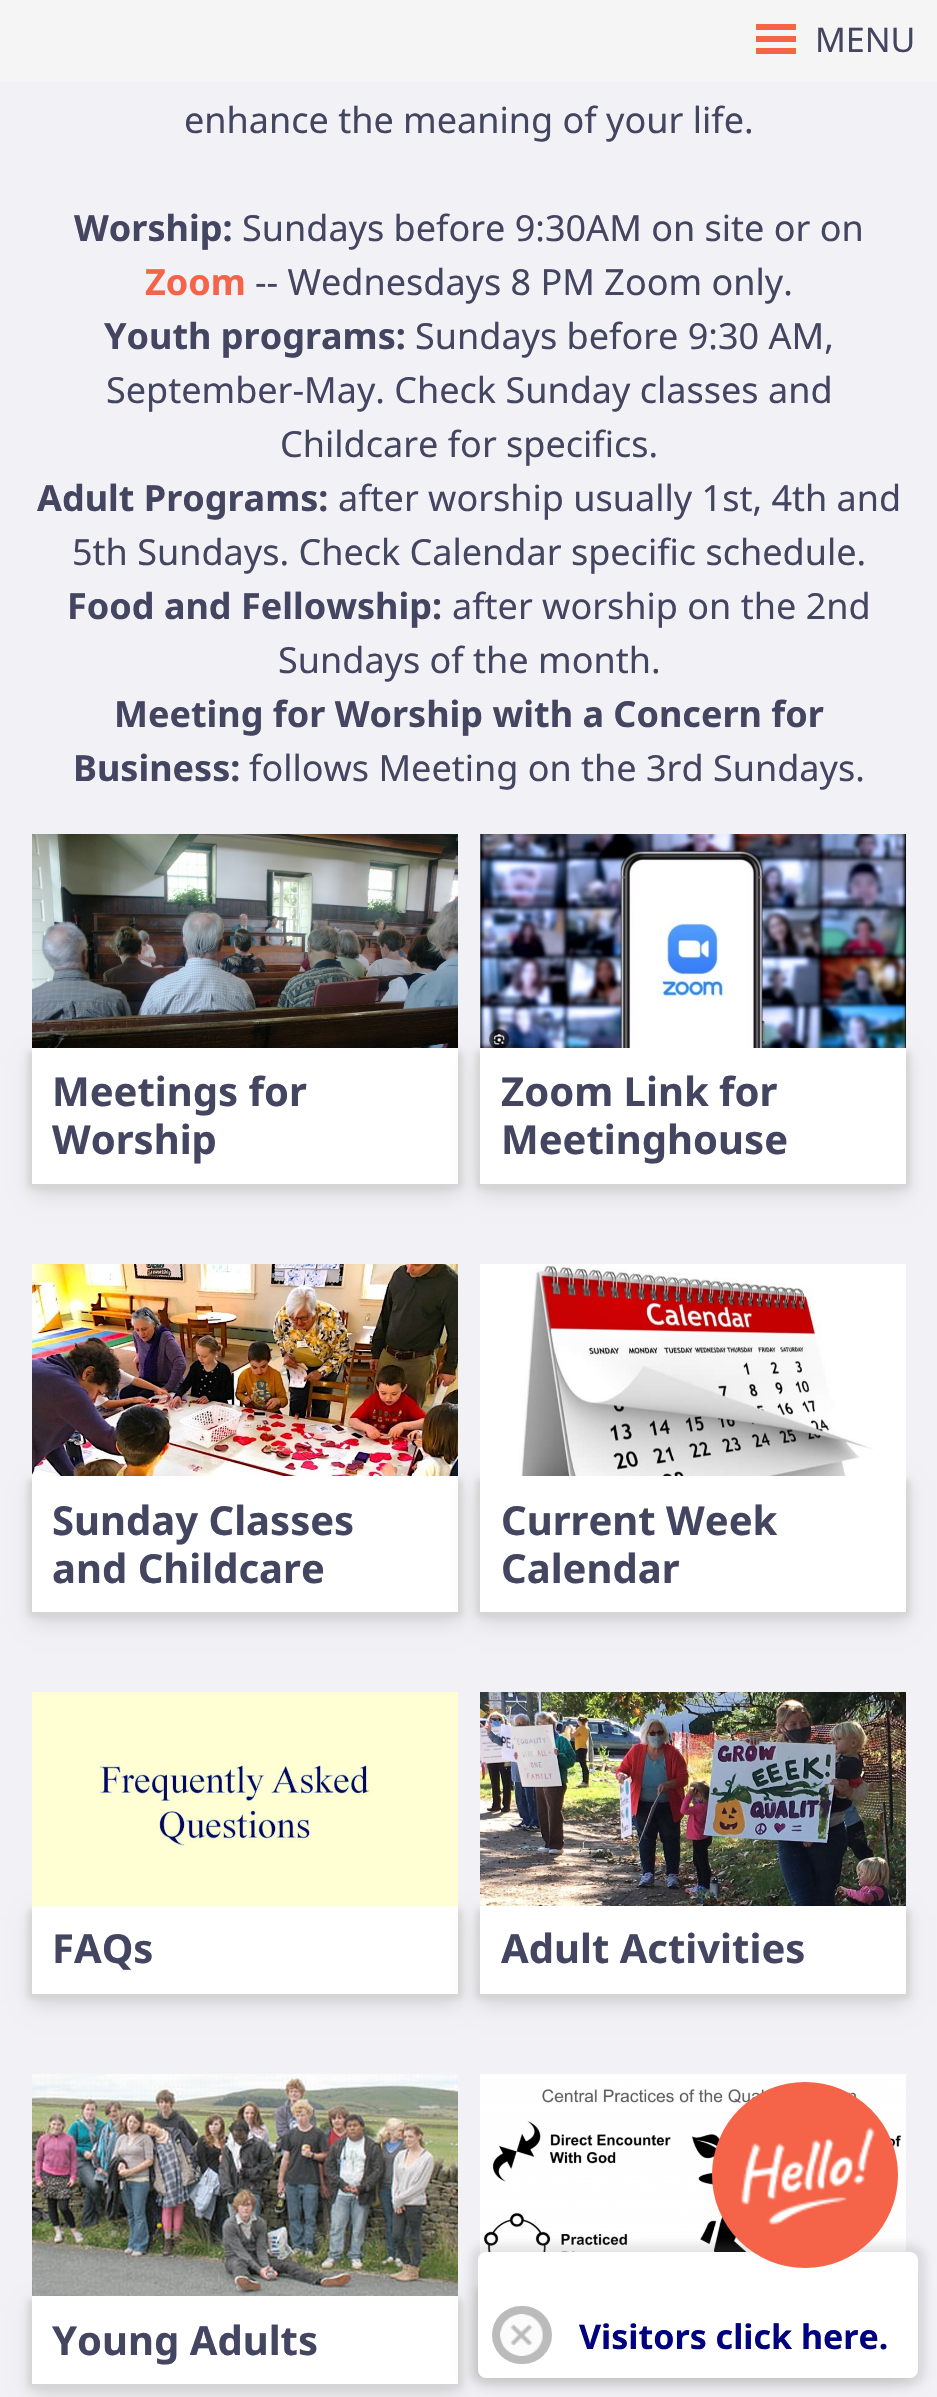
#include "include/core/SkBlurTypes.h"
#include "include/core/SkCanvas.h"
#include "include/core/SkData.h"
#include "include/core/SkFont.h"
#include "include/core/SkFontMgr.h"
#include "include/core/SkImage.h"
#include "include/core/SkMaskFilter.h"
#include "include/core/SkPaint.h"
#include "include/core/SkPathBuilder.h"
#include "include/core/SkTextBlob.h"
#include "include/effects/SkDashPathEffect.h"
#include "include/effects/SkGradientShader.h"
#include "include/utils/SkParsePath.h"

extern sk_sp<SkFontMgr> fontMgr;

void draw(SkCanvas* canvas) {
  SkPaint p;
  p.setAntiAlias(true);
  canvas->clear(SkColorSetRGB(242, 241, 246));
  p.setColor(SkColorSetRGB(245, 245, 245));
  canvas->drawRect(SkRect::MakeLTRB(0, 0, 937, 82), p);
  p.setColor(SkColorSetRGB(245, 99, 72));
  canvas->drawRect(SkRect::MakeLTRB(756, 24, 796, 30), p);
  canvas->drawRect(SkRect::MakeLTRB(756, 36, 796, 42), p);
  canvas->drawRect(SkRect::MakeLTRB(756, 48, 796, 54), p);
  p.setColor(SkColorSetRGB(213, 213, 213));
  p.setMaskFilter(SkMaskFilter::MakeBlur(kNormal_SkBlurStyle, 10));
  canvas->drawRect(SkRect::MakeLTRB(32, 1058, 458, 1194), p);
  p.setMaskFilter(nullptr);
  p.setMaskFilter(SkMaskFilter::MakeBlur(kNormal_SkBlurStyle, 3));
  canvas->drawRect(SkRect::MakeLTRB(28, 1052, 454, 1188), p);
  p.setMaskFilter(nullptr);
  p.setMaskFilter(SkMaskFilter::MakeBlur(kNormal_SkBlurStyle, 3));
  canvas->drawRect(SkRect::MakeLTRB(36, 1052, 462, 1188), p);
  p.setMaskFilter(nullptr);
  p.setColor(SK_ColorWHITE);
  canvas->drawRect(SkRect::MakeLTRB(32, 1048, 458, 1184), p);
  p.setColor(SkColorSetRGB(213, 213, 213));
  p.setMaskFilter(SkMaskFilter::MakeBlur(kNormal_SkBlurStyle, 10));
  canvas->drawRect(SkRect::MakeLTRB(480, 1058, 906, 1194), p);
  p.setMaskFilter(nullptr);
  canvas->drawImageRect(SkImages::DeferredFromEncodedData(SkData::MakeFromFileName("images/1.png")), SkRect::MakeLTRB(32, 834, 458, 1048), SkSamplingOptions());
  p.setMaskFilter(SkMaskFilter::MakeBlur(kNormal_SkBlurStyle, 3));
  canvas->drawRect(SkRect::MakeLTRB(476, 1052, 902, 1188), p);
  p.setMaskFilter(nullptr);
  p.setMaskFilter(SkMaskFilter::MakeBlur(kNormal_SkBlurStyle, 3));
  canvas->drawRect(SkRect::MakeLTRB(484, 1052, 910, 1188), p);
  p.setMaskFilter(nullptr);
  canvas->drawImageRect(SkImages::DeferredFromEncodedData(SkData::MakeFromFileName("images/2.png")), SkRect::MakeLTRB(480, 834, 906, 1048), SkSamplingOptions());
  p.setColor(SK_ColorWHITE);
  canvas->drawRect(SkRect::MakeLTRB(480, 1048, 906, 1184), p);
  p.setColor(SkColorSetRGB(213, 213, 213));
  p.setMaskFilter(SkMaskFilter::MakeBlur(kNormal_SkBlurStyle, 10));
  canvas->drawRect(SkRect::MakeLTRB(32, 1486, 458, 1622), p);
  p.setMaskFilter(nullptr);
  p.setMaskFilter(SkMaskFilter::MakeBlur(kNormal_SkBlurStyle, 3));
  canvas->drawRect(SkRect::MakeLTRB(28, 1480, 454, 1616), p);
  p.setMaskFilter(nullptr);
  p.setMaskFilter(SkMaskFilter::MakeBlur(kNormal_SkBlurStyle, 3));
  canvas->drawRect(SkRect::MakeLTRB(36, 1480, 462, 1616), p);
  p.setMaskFilter(nullptr);
  p.setColor(SK_ColorWHITE);
  canvas->drawRect(SkRect::MakeLTRB(32, 1476, 458, 1612), p);
  p.setColor(SkColorSetRGB(213, 213, 213));
  p.setMaskFilter(SkMaskFilter::MakeBlur(kNormal_SkBlurStyle, 10));
  canvas->drawRect(SkRect::MakeLTRB(480, 1486, 906, 1622), p);
  p.setMaskFilter(nullptr);
  canvas->drawImageRect(SkImages::DeferredFromEncodedData(SkData::MakeFromFileName("images/3.png")), SkRect::MakeLTRB(32, 1264, 458, 1476), SkSamplingOptions());
  p.setMaskFilter(SkMaskFilter::MakeBlur(kNormal_SkBlurStyle, 3));
  canvas->drawRect(SkRect::MakeLTRB(476, 1480, 902, 1616), p);
  p.setMaskFilter(nullptr);
  p.setMaskFilter(SkMaskFilter::MakeBlur(kNormal_SkBlurStyle, 3));
  canvas->drawRect(SkRect::MakeLTRB(484, 1480, 910, 1616), p);
  p.setMaskFilter(nullptr);
  canvas->drawImageRect(SkImages::DeferredFromEncodedData(SkData::MakeFromFileName("images/4.png")), SkRect::MakeLTRB(480, 1264, 906, 1476), SkSamplingOptions());
  p.setColor(SK_ColorWHITE);
  canvas->drawRect(SkRect::MakeLTRB(480, 1476, 906, 1612), p);
  p.setColor(SkColorSetRGB(213, 213, 213));
  p.setMaskFilter(SkMaskFilter::MakeBlur(kNormal_SkBlurStyle, 10));
  canvas->drawRect(SkRect::MakeLTRB(32, 1916, 458, 2004), p);
  p.setMaskFilter(nullptr);
  p.setMaskFilter(SkMaskFilter::MakeBlur(kNormal_SkBlurStyle, 3));
  canvas->drawRect(SkRect::MakeLTRB(28, 1910, 454, 1998), p);
  p.setMaskFilter(nullptr);
  p.setMaskFilter(SkMaskFilter::MakeBlur(kNormal_SkBlurStyle, 3));
  canvas->drawRect(SkRect::MakeLTRB(36, 1910, 462, 1998), p);
  p.setMaskFilter(nullptr);
  p.setColor(SK_ColorWHITE);
  canvas->drawRect(SkRect::MakeLTRB(32, 1906, 458, 1994), p);
  p.setColor(SkColorSetRGB(213, 213, 213));
  p.setMaskFilter(SkMaskFilter::MakeBlur(kNormal_SkBlurStyle, 10));
  canvas->drawRect(SkRect::MakeLTRB(480, 1916, 906, 2004), p);
  p.setMaskFilter(nullptr);
  canvas->drawImageRect(SkImages::DeferredFromEncodedData(SkData::MakeFromFileName("images/5.png")), SkRect::MakeLTRB(32, 1692, 458, 1906), SkSamplingOptions());
  p.setMaskFilter(SkMaskFilter::MakeBlur(kNormal_SkBlurStyle, 3));
  canvas->drawRect(SkRect::MakeLTRB(476, 1910, 902, 1998), p);
  p.setMaskFilter(nullptr);
  p.setMaskFilter(SkMaskFilter::MakeBlur(kNormal_SkBlurStyle, 3));
  canvas->drawRect(SkRect::MakeLTRB(484, 1910, 910, 1998), p);
  p.setMaskFilter(nullptr);
  canvas->drawImageRect(SkImages::DeferredFromEncodedData(SkData::MakeFromFileName("images/6.png")), SkRect::MakeLTRB(480, 1692, 906, 1906), SkSamplingOptions());
  p.setColor(SK_ColorWHITE);
  canvas->drawRect(SkRect::MakeLTRB(480, 1906, 906, 1994), p);
  p.setColor(SkColorSetRGB(213, 213, 213));
  p.setMaskFilter(SkMaskFilter::MakeBlur(kNormal_SkBlurStyle, 10));
  canvas->drawRect(SkRect::MakeLTRB(32, 2306, 458, 2394), p);
  p.setMaskFilter(nullptr);
  p.setMaskFilter(SkMaskFilter::MakeBlur(kNormal_SkBlurStyle, 3));
  canvas->drawRect(SkRect::MakeLTRB(28, 2300, 454, 2388), p);
  p.setMaskFilter(nullptr);
  p.setMaskFilter(SkMaskFilter::MakeBlur(kNormal_SkBlurStyle, 3));
  canvas->drawRect(SkRect::MakeLTRB(36, 2300, 462, 2388), p);
  p.setMaskFilter(nullptr);
  p.setColor(SK_ColorWHITE);
  canvas->drawRect(SkRect::MakeLTRB(32, 2296, 458, 2384), p);
  p.setColor(SkColorSetRGB(213, 213, 213));
  p.setMaskFilter(SkMaskFilter::MakeBlur(kNormal_SkBlurStyle, 10));
  canvas->drawRect(SkRect::MakeLTRB(480, 2294, 906, 2382), p);
  p.setMaskFilter(nullptr);
  canvas->drawImageRect(SkImages::DeferredFromEncodedData(SkData::MakeFromFileName("images/7.png")), SkRect::MakeLTRB(32, 2074, 458, 2296), SkSamplingOptions());
  canvas->drawImageRect(SkImages::DeferredFromEncodedData(SkData::MakeFromFileName("images/8.png")), SkRect::MakeLTRB(480, 2074, 906, 2255), SkSamplingOptions());
  p.setMaskFilter(SkMaskFilter::MakeBlur(kNormal_SkBlurStyle, 3));
  canvas->drawRect(SkRect::MakeLTRB(476, 2288, 902, 2376), p);
  p.setMaskFilter(nullptr);
  p.setMaskFilter(SkMaskFilter::MakeBlur(kNormal_SkBlurStyle, 3));
  canvas->drawRect(SkRect::MakeLTRB(484, 2288, 910, 2376), p);
  p.setMaskFilter(nullptr);
  p.setColor(SkColorSetARGB(51, 128, 128, 128));
  p.setMaskFilter(SkMaskFilter::MakeBlur(kNormal_SkBlurStyle, 4));
  canvas->drawRoundRect(SkRect::MakeLTRB(470, 2244, 926, 2386), 16, 16, p);
  p.setMaskFilter(nullptr);
  p.setColor(SK_ColorWHITE);
  canvas->drawRoundRect(SkRect::MakeLTRB(478, 2252, 918, 2378), 8, 8, p);
  p.setColor(SkColorSetRGB(187, 187, 187));
  canvas->drawRoundRect(SkRect::MakeLTRB(492, 2306, 552, 2364), 29, 29, p);
  canvas->drawImageRect(SkImages::DeferredFromEncodedData(SkData::MakeFromFileName("images/9.png")), SkRect::MakeLTRB(500, 2314, 543, 2356), SkSamplingOptions());
  p.setColor(SkColorSetRGB(245, 99, 72));
  canvas->drawCircle(805, 2175, 93, p);
  canvas->drawImageRect(SkImages::DeferredFromEncodedData(SkData::MakeFromFileName("images/10.png")), SkRect::MakeLTRB(741, 2127, 875, 2225), SkSamplingOptions());
  SkFont font1(fontMgr->matchFamilyStyle("Noto Sans", SkFontStyle::Normal()), 34);
  font1.setSubpixel(true);
  p.setColor(SkColorSetRGB(67, 69, 97));
  canvas->drawString("MENU", 815, 52, font1, p);
  SkFont font2(fontMgr->matchFamilyStyle("Noto Sans", SkFontStyle::Normal()), 36);
  font2.setSubpixel(true);
  canvas->drawString("enhance the meaning of your life.", 184, 133, font2, p);
  SkFont font3(fontMgr->matchFamilyStyle("Noto Sans", SkFontStyle::Bold()), 36);
  font3.setSubpixel(true);
  canvas->drawString("Worship:", 74, 241, font3, p);
  canvas->drawString("Sundays before 9:30AM on site or on", 242, 241, font2, p);
  p.setColor(SkColorSetRGB(245, 99, 72));
  canvas->drawString("Zoom", 145, 295, font3, p);
  p.setColor(SkColorSetRGB(67, 69, 97));
  canvas->drawString("-- Wednesdays 8 PM Zoom only.", 255, 295, font2, p);
  canvas->drawString("Youth programs:", 104, 349, font3, p);
  canvas->drawString("Sundays before 9:30 AM,", 415, 349, font2, p);
  canvas->drawString("September-May. Check Sunday classes and", 106, 403, font2, p);
  canvas->drawString("Childcare for specifics.", 280, 457, font2, p);
  canvas->drawString("Adult Programs:", 37, 511, font3, p);
  canvas->drawString("after worship usually 1st, 4th and", 338, 511, font2, p);
  canvas->drawString("5th Sundays. Check Calendar specific schedule.", 72, 565, font2, p);
  canvas->drawString("Food and Fellowship:", 67, 619, font3, p);
  canvas->drawString("after worship on the 2nd", 452, 619, font2, p);
  canvas->drawString("Sundays of the month.", 278, 673, font2, p);
  canvas->drawString("Meeting for Worship with a Concern for", 114, 727, font3, p);
  canvas->drawString("Business:", 73, 781, font3, p);
  canvas->drawString("follows Meeting on the 3rd Sundays.", 249, 781, font2, p);
  SkFont font4(fontMgr->matchFamilyStyle("Noto Sans", SkFontStyle::Bold()), 40);
  font4.setSubpixel(true);
  canvas->drawString("Meetings for", 52, 1106, font4, p);
  canvas->drawString("Worship", 52, 1154, font4, p);
  canvas->drawString("Zoom Link for", 501, 1106, font4, p);
  canvas->drawString("Meetinghouse", 501, 1154, font4, p);
  canvas->drawString("Sunday Classes", 52, 1535, font4, p);
  canvas->drawString("and Childcare", 52, 1583, font4, p);
  canvas->drawString("Current Week", 501, 1535, font4, p);
  canvas->drawString("Calendar", 501, 1583, font4, p);
  canvas->drawString("FAQs", 52, 1963, font4, p);
  canvas->drawString("Adult Activities", 501, 1963, font4, p);
  canvas->drawString("Young Adults", 52, 2355, font4, p);
  SkFont font5(fontMgr->matchFamilyStyle("Noto Sans", SkFontStyle::Bold()), 34);
  font5.setSubpixel(true);
  p.setColor(SkColorSetRGB(0, 0, 128));
  canvas->drawString("Visitors click here.", 579, 2349, font5, p);
}
